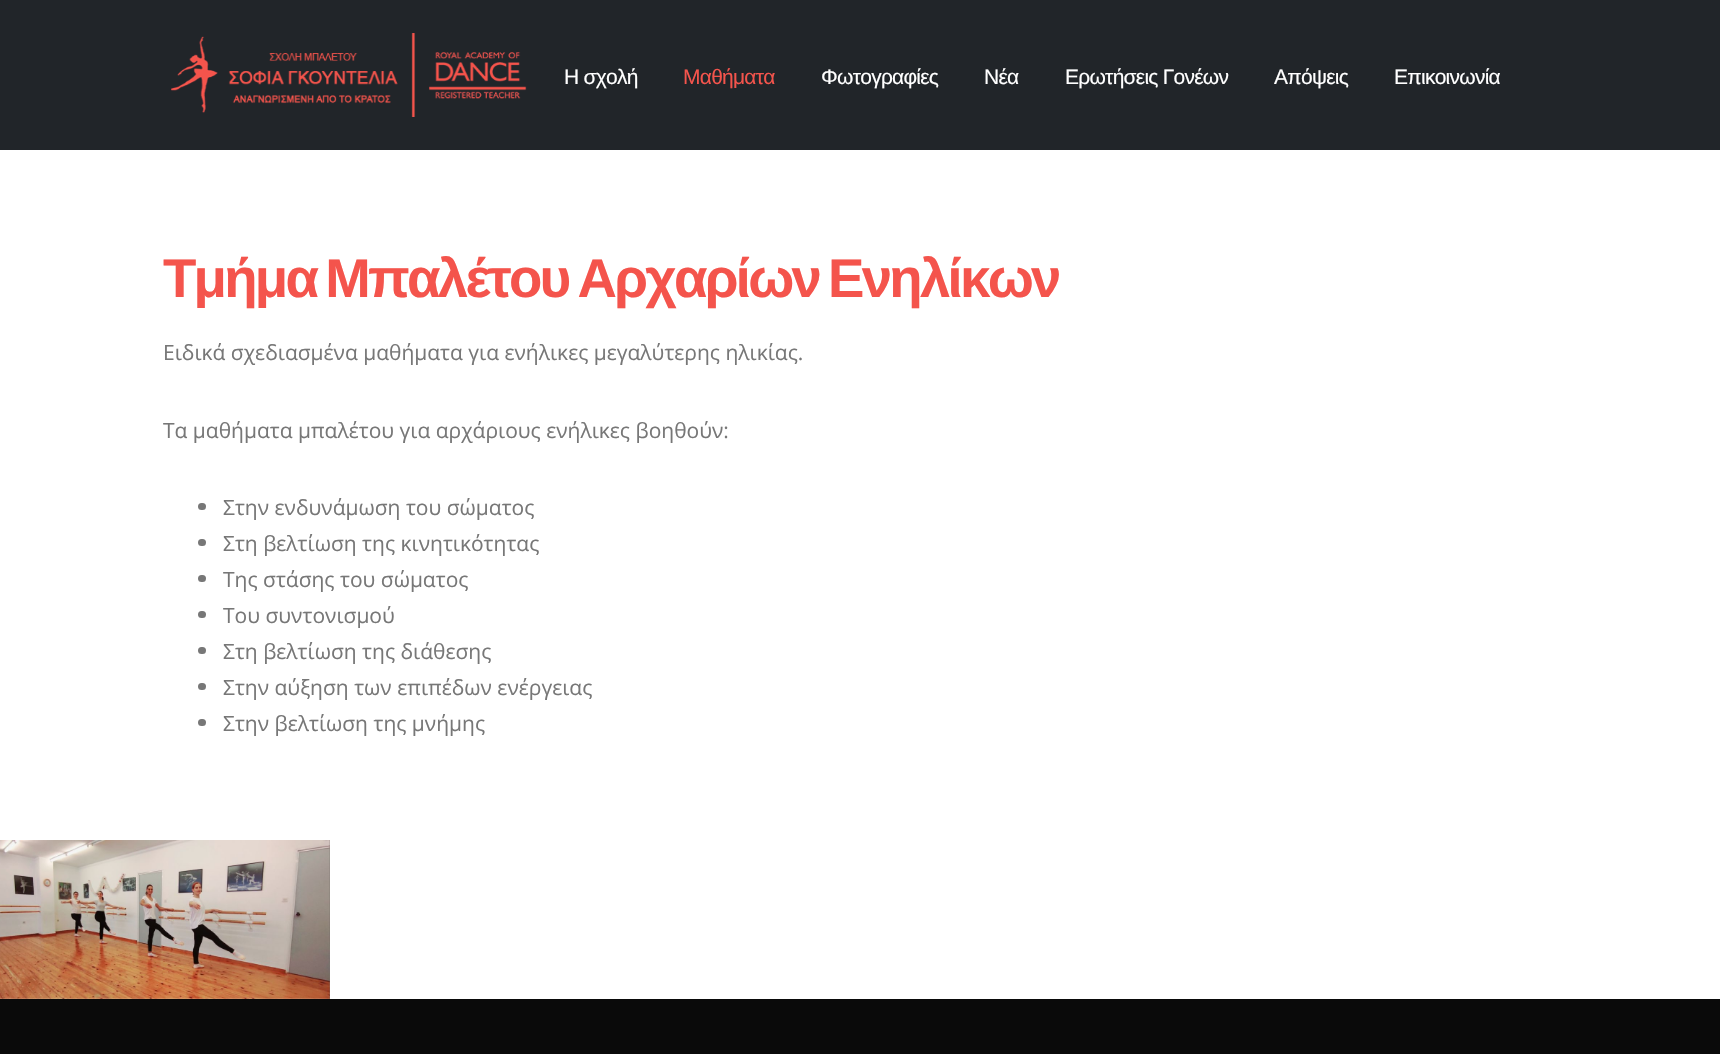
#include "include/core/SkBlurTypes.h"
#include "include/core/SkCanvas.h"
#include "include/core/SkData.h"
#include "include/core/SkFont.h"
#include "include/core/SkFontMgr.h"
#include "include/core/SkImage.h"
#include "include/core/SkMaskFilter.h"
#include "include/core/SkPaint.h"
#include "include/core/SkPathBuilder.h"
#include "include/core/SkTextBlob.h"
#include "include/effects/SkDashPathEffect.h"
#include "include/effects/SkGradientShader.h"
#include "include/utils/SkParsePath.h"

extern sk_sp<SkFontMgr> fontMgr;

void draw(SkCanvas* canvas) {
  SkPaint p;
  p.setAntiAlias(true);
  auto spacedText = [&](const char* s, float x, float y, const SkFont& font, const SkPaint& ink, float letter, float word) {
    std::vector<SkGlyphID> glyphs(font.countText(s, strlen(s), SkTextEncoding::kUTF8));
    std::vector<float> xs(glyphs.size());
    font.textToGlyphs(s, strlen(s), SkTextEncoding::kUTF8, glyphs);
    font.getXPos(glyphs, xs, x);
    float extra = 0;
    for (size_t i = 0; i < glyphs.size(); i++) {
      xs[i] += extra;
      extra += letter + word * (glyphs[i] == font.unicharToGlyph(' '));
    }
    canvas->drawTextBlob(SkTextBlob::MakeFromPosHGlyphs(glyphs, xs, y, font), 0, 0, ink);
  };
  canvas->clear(SK_ColorWHITE);
  p.setColor(SkColorSetRGB(33, 37, 41));
  canvas->drawRect(SkRect::MakeLTRB(0, 0, 1720, 150), p);
  canvas->drawImageRect(SkImages::DeferredFromEncodedData(SkData::MakeFromFileName("images/1.png")), SkRect::MakeLTRB(171, 33, 527, 117), SkSamplingOptions());
  p.setColor(SkColorSetRGB(119, 119, 119));
  canvas->drawRoundRect(SkRect::MakeLTRB(198, 503, 206, 510), 3.5f, 3.5f, p);
  canvas->drawRoundRect(SkRect::MakeLTRB(198, 539, 206, 546), 3.5f, 3.5f, p);
  canvas->drawRoundRect(SkRect::MakeLTRB(198, 575, 206, 582), 3.5f, 3.5f, p);
  canvas->drawRoundRect(SkRect::MakeLTRB(198, 611, 206, 618), 3.5f, 3.5f, p);
  canvas->drawRoundRect(SkRect::MakeLTRB(198, 647, 206, 654), 3.5f, 3.5f, p);
  canvas->drawRoundRect(SkRect::MakeLTRB(198, 683, 206, 690), 3.5f, 3.5f, p);
  canvas->drawRoundRect(SkRect::MakeLTRB(198, 719, 206, 726), 3.5f, 3.5f, p);
  canvas->drawImageRect(SkImages::DeferredFromEncodedData(SkData::MakeFromFileName("images/2.png")), SkRect::MakeLTRB(0, 840, 330, 999), SkSamplingOptions());
  p.setColor(SkColorSetRGB(10, 10, 10));
  canvas->drawRect(SkRect::MakeLTRB(0, 999, 1720, 1054), p);
  SkFont font1(fontMgr->matchFamilyStyle("Liberation Sans", SkFontStyle::Normal()), 21);
  font1.setSubpixel(true);
  p.setColor(SK_ColorWHITE);
  spacedText("Η σχολή", 564, 84, font1, p, -0.75f, 0);
  p.setColor(SkColorSetRGB(244, 84, 76));
  spacedText("Μαθήματα", 683, 84, font1, p, -0.75f, 0);
  p.setColor(SK_ColorWHITE);
  spacedText("Φωτογραφίες", 821, 84, font1, p, -0.75f, 0);
  spacedText("Νέα", 984, 84, font1, p, -0.75f, 0);
  spacedText("Ερωτήσεις Γονέων", 1065, 84, font1, p, -0.75f, 0);
  spacedText("Απόψεις", 1274, 84, font1, p, -0.75f, 0);
  spacedText("Επικοινωνία", 1394, 84, font1, p, -0.75f, 0);
  SkFont font2(fontMgr->matchFamilyStyle("Liberation Sans", SkFontStyle::Bold()), 54.6f);
  font2.setSubpixel(true);
  p.setColor(SkColorSetRGB(244, 84, 76));
  spacedText("Τμήμα Μπαλέτου Αρχαρίων Ενηλίκων", 163, 297, font2, p, -2.75f, -3.5f);
  SkFont font3(fontMgr->matchFamilyStyle("Open Sans", SkFontStyle::Normal()), 21);
  font3.setSubpixel(true);
  p.setColor(SkColorSetRGB(119, 119, 119));
  canvas->drawString("Ειδικά σχεδιασμένα μαθήματα για ενήλικες μεγαλύτερης ηλικίας.", 163, 360, font3, p);
  canvas->drawString("Τα μαθήματα μπαλέτου για αρχάριους ενήλικες βοηθούν:", 163, 438, font3, p);
  canvas->drawString("Στην ενδυνάμωση του σώματος", 223, 515, font3, p);
  canvas->drawString("Στη βελτίωση της κινητικότητας", 223, 551, font3, p);
  canvas->drawString("Της στάσης του σώματος", 223, 587, font3, p);
  canvas->drawString("Του συντονισμού", 223, 623, font3, p);
  canvas->drawString("Στη βελτίωση της διάθεσης", 223, 659, font3, p);
  canvas->drawString("Στην αύξηση των επιπέδων ενέργειας", 223, 695, font3, p);
  canvas->drawString("Στην βελτίωση της μνήμης", 223, 731, font3, p);
}
